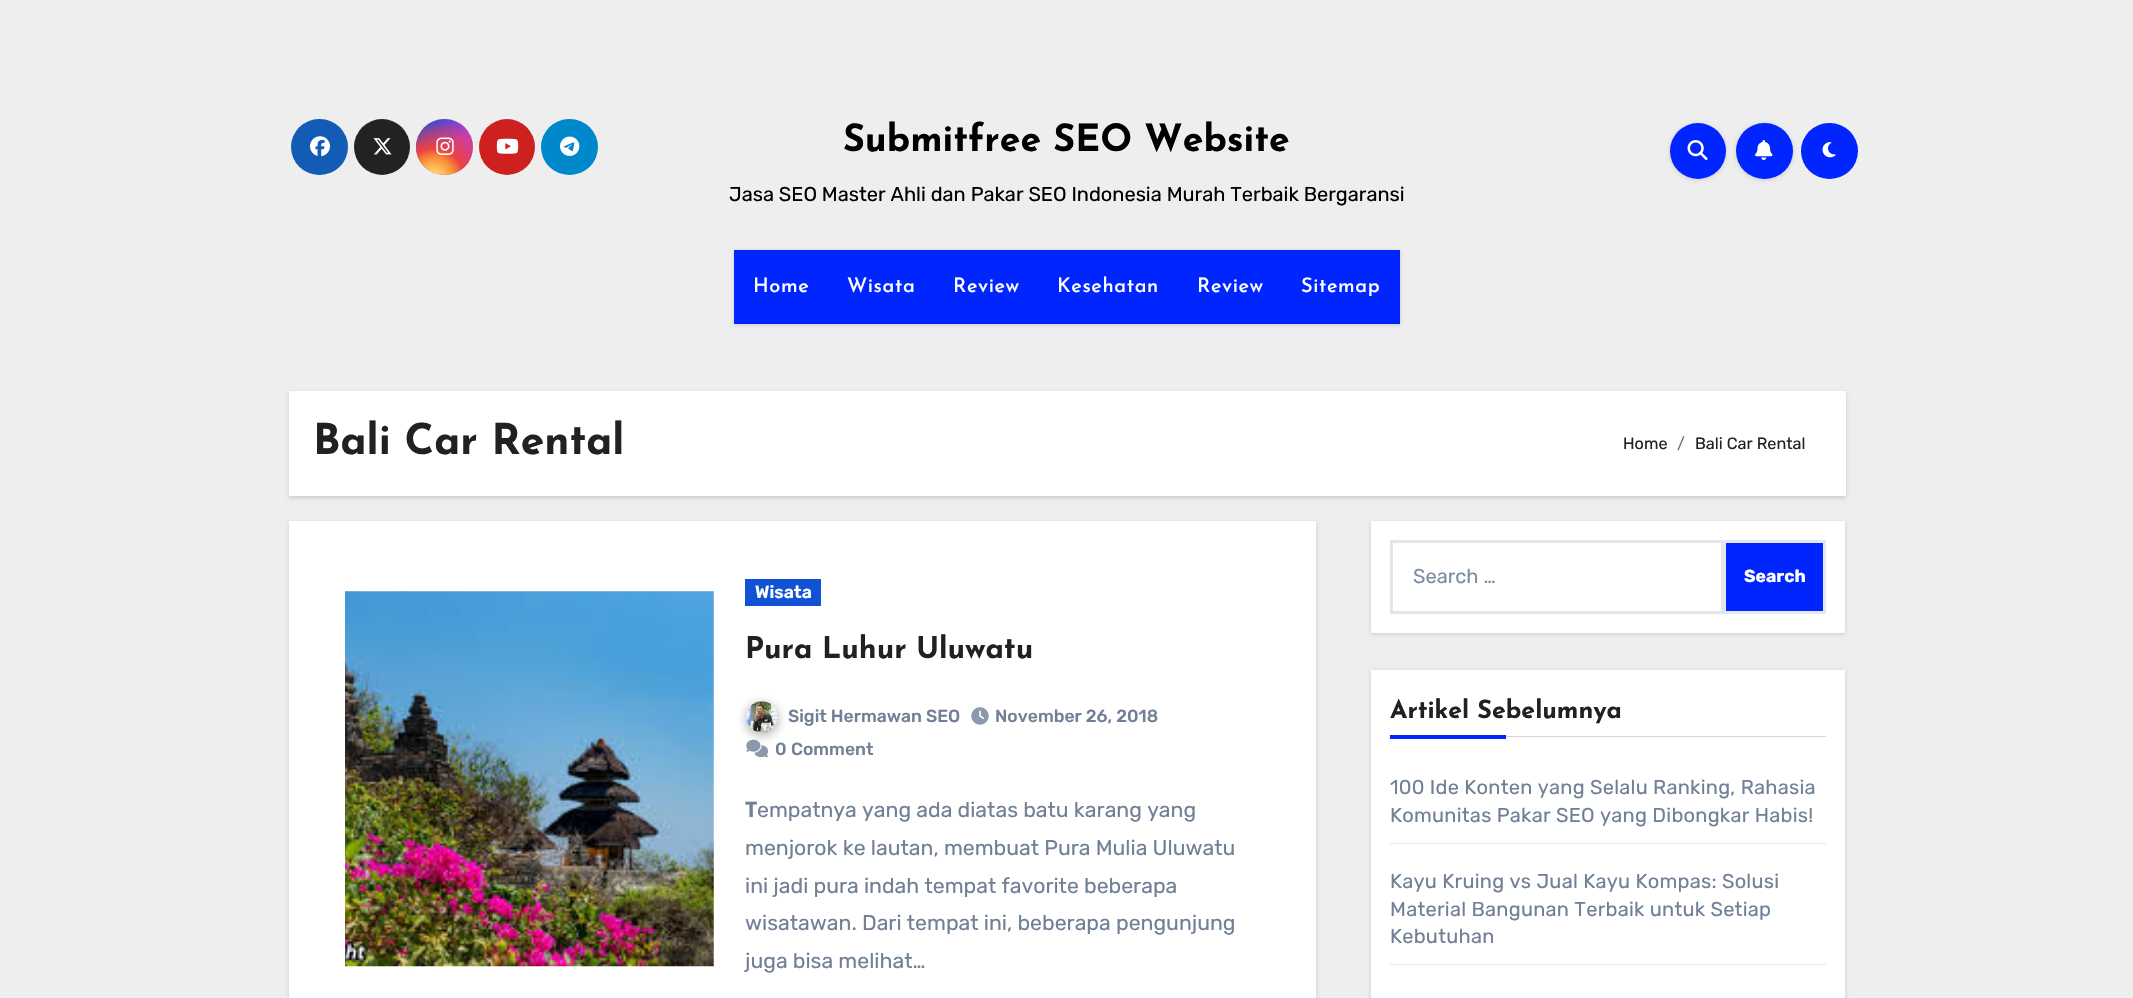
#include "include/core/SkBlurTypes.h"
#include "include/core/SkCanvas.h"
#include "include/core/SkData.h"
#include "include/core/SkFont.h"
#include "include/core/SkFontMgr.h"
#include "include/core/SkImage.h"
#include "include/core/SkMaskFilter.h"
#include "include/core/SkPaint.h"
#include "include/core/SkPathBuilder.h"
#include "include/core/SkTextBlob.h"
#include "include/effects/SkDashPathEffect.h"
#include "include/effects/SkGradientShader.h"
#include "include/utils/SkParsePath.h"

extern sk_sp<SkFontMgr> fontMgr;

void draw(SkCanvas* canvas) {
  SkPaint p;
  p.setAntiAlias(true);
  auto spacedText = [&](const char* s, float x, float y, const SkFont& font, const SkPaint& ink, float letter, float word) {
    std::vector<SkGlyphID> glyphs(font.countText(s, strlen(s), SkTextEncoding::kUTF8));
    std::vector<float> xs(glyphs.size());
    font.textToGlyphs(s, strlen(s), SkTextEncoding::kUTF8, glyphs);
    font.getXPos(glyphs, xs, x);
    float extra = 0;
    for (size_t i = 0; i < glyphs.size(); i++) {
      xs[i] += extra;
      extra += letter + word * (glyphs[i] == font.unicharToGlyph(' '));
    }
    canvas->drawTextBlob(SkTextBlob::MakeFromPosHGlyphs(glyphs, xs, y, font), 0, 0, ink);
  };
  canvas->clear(SkColorSetRGB(238, 238, 238));
  p.setColor(SkColorSetRGB(19, 92, 182));
  canvas->drawRoundRect(SkRect::MakeLTRB(291, 119, 348, 175), 28, 28, p);
  canvas->drawImageRect(SkImages::DeferredFromEncodedData(SkData::MakeFromFileName("images/1.png")), SkRect::MakeLTRB(310, 136, 330, 157), SkSamplingOptions());
  p.setColor(SkColorSetRGB(34, 34, 34));
  canvas->drawCircle(382, 147, 28, p);
  canvas->drawImageRect(SkImages::DeferredFromEncodedData(SkData::MakeFromFileName("images/2.png")), SkRect::MakeLTRB(373, 138, 392, 155), SkSamplingOptions());
  {
    const SkColor colors[] = {SkColorSetRGB(35, 75, 215), SkColorSetRGB(195, 60, 190)};
    const float stops[] = {0.12f, 0.58f};
    const SkPoint ends[] = {{416, 119}, {473, 175}};
    p.setShader(SkGradientShader::MakeLinear(ends, colors, stops, 2, SkTileMode::kClamp));
    p.setAlpha(255);
  }
  canvas->drawRoundRect(SkRect::MakeLTRB(416, 119, 473, 175), 28, 28, p);
  {
    const SkColor colors[] = {SkColorSetRGB(255, 225, 125), SkColorSetRGB(255, 205, 105), SkColorSetRGB(250, 145, 55), SkColorSetRGB(235, 65, 65), SkColorSetARGB(0, 235, 65, 65)};
    const float stops[] = {0, 0.1f, 0.28f, 0.42f, 0.82f};
    p.setShader(SkGradientShader::MakeRadial({434, 178}, 71, colors, stops, 5, SkTileMode::kClamp));
    p.setAlpha(255);
  }
  canvas->drawRoundRect(SkRect::MakeLTRB(416, 119, 473, 175), 28, 28, p);
  canvas->drawImageRect(SkImages::DeferredFromEncodedData(SkData::MakeFromFileName("images/3.png")), SkRect::MakeLTRB(436, 137, 454, 155), SkSamplingOptions());
  p.setShader(nullptr);
  p.setColor(SkColorSetRGB(205, 32, 31));
  canvas->drawCircle(507, 147, 28, p);
  canvas->drawImageRect(SkImages::DeferredFromEncodedData(SkData::MakeFromFileName("images/4.png")), SkRect::MakeLTRB(496, 138, 519, 154), SkSamplingOptions());
  p.setColor(SkColorSetRGB(0, 136, 204));
  canvas->drawRoundRect(SkRect::MakeLTRB(541, 119, 598, 175), 28, 28, p);
  canvas->drawImageRect(SkImages::DeferredFromEncodedData(SkData::MakeFromFileName("images/5.png")), SkRect::MakeLTRB(560, 136, 580, 156), SkSamplingOptions());
  p.setColor(SkColorSetARGB(38, 0, 0, 0));
  p.setMaskFilter(SkMaskFilter::MakeBlur(kNormal_SkBlurStyle, 2));
  canvas->drawRoundRect(SkRect::MakeLTRB(1670, 124, 1726, 180), 28, 28, p);
  p.setMaskFilter(nullptr);
  p.setColor(SkColorSetRGB(0, 37, 255));
  canvas->drawCircle(1698, 151, 28, p);
  canvas->drawImageRect(SkImages::DeferredFromEncodedData(SkData::MakeFromFileName("images/6.png")), SkRect::MakeLTRB(1687, 140, 1708, 160), SkSamplingOptions());
  p.setColor(SkColorSetARGB(38, 0, 0, 0));
  p.setMaskFilter(SkMaskFilter::MakeBlur(kNormal_SkBlurStyle, 2));
  canvas->drawRoundRect(SkRect::MakeLTRB(1736, 124, 1793, 180), 28, 28, p);
  p.setMaskFilter(nullptr);
  p.setColor(SkColorSetRGB(0, 37, 255));
  canvas->drawRoundRect(SkRect::MakeLTRB(1736, 123, 1793, 179), 28, 28, p);
  canvas->drawImageRect(SkImages::DeferredFromEncodedData(SkData::MakeFromFileName("images/7.png")), SkRect::MakeLTRB(1755, 140, 1773, 160), SkSamplingOptions());
  canvas->drawRoundRect(SkRect::MakeLTRB(1801, 123, 1858, 179), 28, 28, p);
  canvas->drawImageRect(SkImages::DeferredFromEncodedData(SkData::MakeFromFileName("images/8.png")), SkRect::MakeLTRB(1822, 142, 1836, 158), SkSamplingOptions());
  p.setColor(SkColorSetARGB(38, 0, 0, 0));
  p.setMaskFilter(SkMaskFilter::MakeBlur(kNormal_SkBlurStyle, 2));
  canvas->drawRect(SkRect::MakeLTRB(734, 251, 1400, 325), p);
  p.setMaskFilter(nullptr);
  p.setColor(SkColorSetRGB(0, 37, 255));
  canvas->drawRect(SkRect::MakeLTRB(734, 250, 1400, 324), p);
  p.setColor(SkColorSetARGB(38, 0, 0, 0));
  p.setMaskFilter(SkMaskFilter::MakeBlur(kNormal_SkBlurStyle, 2));
  canvas->drawRect(SkRect::MakeLTRB(289, 393, 1846, 498), p);
  p.setMaskFilter(nullptr);
  p.setColor(SK_ColorWHITE);
  canvas->drawRect(SkRect::MakeLTRB(289, 391, 1846, 496), p);
  p.setColor(SkColorSetARGB(38, 0, 0, 0));
  p.setMaskFilter(SkMaskFilter::MakeBlur(kNormal_SkBlurStyle, 2));
  canvas->drawRect(SkRect::MakeLTRB(289, 523, 1316, 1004), p);
  p.setMaskFilter(nullptr);
  p.setColor(SK_ColorWHITE);
  canvas->drawRect(SkRect::MakeLTRB(289, 521, 1316, 998), p);
  canvas->drawImageRect(SkImages::DeferredFromEncodedData(SkData::MakeFromFileName("images/9.png")), SkRect::MakeLTRB(345, 591, 714, 967), SkSamplingOptions());
  p.setColor(SkColorSetRGB(17, 81, 211));
  canvas->drawRect(SkRect::MakeLTRB(745, 579, 821, 606), p);
  p.setColor(SkColorSetARGB(77, 33, 33, 33));
  p.setMaskFilter(SkMaskFilter::MakeBlur(kNormal_SkBlurStyle, 5));
  canvas->drawRoundRect(SkRect::MakeLTRB(745, 703, 779, 736), 16.5f, 16.5f, p);
  p.setMaskFilter(nullptr);
  canvas->drawImageRect(SkImages::DeferredFromEncodedData(SkData::MakeFromFileName("images/10.png")), SkRect::MakeLTRB(746, 701, 778, 732), SkSamplingOptions());
  canvas->drawImageRect(SkImages::DeferredFromEncodedData(SkData::MakeFromFileName("images/11.png")), SkRect::MakeLTRB(971, 707, 989, 725), SkSamplingOptions());
  canvas->drawImageRect(SkImages::DeferredFromEncodedData(SkData::MakeFromFileName("images/12.png")), SkRect::MakeLTRB(746, 739, 769, 758), SkSamplingOptions());
  p.setColor(SkColorSetARGB(38, 0, 0, 0));
  p.setMaskFilter(SkMaskFilter::MakeBlur(kNormal_SkBlurStyle, 2));
  canvas->drawRect(SkRect::MakeLTRB(1371, 523, 1845, 634), p);
  p.setMaskFilter(nullptr);
  p.setColor(SK_ColorWHITE);
  canvas->drawRect(SkRect::MakeLTRB(1371, 521, 1845, 633), p);
  p.setStyle(SkPaint::kStroke_Style);
  p.setStrokeWidth(3);
  p.setColor(SkColorSetRGB(229, 229, 229));
  canvas->drawRect(SkRect::MakeLTRB(1391.5f, 541.5f, 1722.5f, 612.5f), p);
  p.setStyle(SkPaint::kFill_Style);
  p.setColor(SkColorSetRGB(0, 37, 255));
  canvas->drawRect(SkRect::MakeLTRB(1724.5f, 541.5f, 1824.5f, 612.5f), p);
  p.setStyle(SkPaint::kStroke_Style);
  p.setColor(SkColorSetRGB(226, 232, 240));
  canvas->drawRect(SkRect::MakeLTRB(1724.5f, 541.5f, 1824.5f, 612.5f), p);
  p.setStyle(SkPaint::kFill_Style);
  p.setColor(SkColorSetARGB(38, 0, 0, 0));
  p.setMaskFilter(SkMaskFilter::MakeBlur(kNormal_SkBlurStyle, 2));
  canvas->drawRect(SkRect::MakeLTRB(1371, 671, 1845, 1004), p);
  p.setMaskFilter(nullptr);
  p.setColor(SK_ColorWHITE);
  canvas->drawRect(SkRect::MakeLTRB(1371, 670, 1845, 998), p);
  p.setColor(SkColorSetRGB(215, 215, 215));
  canvas->drawRect(SkRect::MakeLTRB(1506, 736, 1826, 737), p);
  p.setColor(SkColorSetRGB(0, 37, 255));
  canvas->drawRect(SkRect::MakeLTRB(1390, 735, 1506, 739), p);
  p.setColor(SkColorSetRGB(226, 232, 240));
  canvas->drawRect(SkRect::MakeLTRB(1390, 843, 1826, 844), p);
  canvas->drawRect(SkRect::MakeLTRB(1390, 964, 1826, 965), p);
  SkFont font1(fontMgr->matchFamilyStyle("Josefin Sans", SkFontStyle::Bold()), 37.5f);
  font1.setSubpixel(true);
  p.setColor(SK_ColorBLACK);
  canvas->drawString("Submitfree SEO Website", 843, 151, font1, p);
  SkFont font2(fontMgr->matchFamilyStyle("Rubik", SkFontStyle::Normal()), 20);
  font2.setSubpixel(true);
  canvas->drawString("Jasa SEO Master Ahli dan Pakar SEO Indonesia Murah Terbaik Bergaransi", 729, 201, font2, p);
  SkFont font3(fontMgr->matchFamilyStyle("Josefin Sans", SkFontStyle(500, SkFontStyle::kNormal_Width, SkFontStyle::kUpright_Slant)), 20);
  font3.setSubpixel(true);
  p.setColor(SK_ColorWHITE);
  spacedText("Home", 753, 292, font3, p, 0.6f, 0);
  spacedText("Wisata", 847, 292, font3, p, 0.6f, 0);
  spacedText("Review", 953, 292, font3, p, 0.6f, 0);
  spacedText("Kesehatan", 1057, 292, font3, p, 0.6f, 0);
  spacedText("Review", 1197, 292, font3, p, 0.6f, 0);
  spacedText("Sitemap", 1301, 292, font3, p, 0.6f, 0);
  SkFont font4(fontMgr->matchFamilyStyle("Josefin Sans", SkFontStyle::Bold()), 42.5f);
  font4.setSubpixel(true);
  p.setColor(SkColorSetRGB(33, 33, 33));
  canvas->drawString("Bali Car Rental", 313, 454, font4, p);
  SkFont font5(fontMgr->matchFamilyStyle("Rubik", SkFontStyle::Normal()), 16.25f);
  font5.setSubpixel(true);
  canvas->drawString("Home", 1623, 449, font5, p);
  p.setColor(SkColorSetRGB(108, 117, 125));
  canvas->drawString("/", 1677, 449, font5, p);
  p.setColor(SkColorSetRGB(33, 33, 33));
  canvas->drawString("Bali Car Rental", 1695, 449, font5, p);
  SkFont font6(fontMgr->matchFamilyStyle("Rubik", SkFontStyle(600, SkFontStyle::kNormal_Width, SkFontStyle::kUpright_Slant)), 17.5f);
  font6.setSubpixel(true);
  p.setColor(SK_ColorWHITE);
  canvas->drawString("Wisata", 755, 598, font6, p);
  SkFont font7(fontMgr->matchFamilyStyle("Josefin Sans", SkFontStyle::Bold()), 30);
  font7.setSubpixel(true);
  p.setColor(SkColorSetRGB(33, 33, 33));
  canvas->drawString("Pura Luhur Uluwatu", 745, 658, font7, p);
  SkFont font8(fontMgr->matchFamilyStyle("Rubik", SkFontStyle(500, SkFontStyle::kNormal_Width, SkFontStyle::kUpright_Slant)), 17.5f);
  font8.setSubpixel(true);
  p.setColor(SkColorSetRGB(113, 128, 150));
  canvas->drawString("Sigit Hermawan SEO", 788, 722, font8, p);
  canvas->drawString("November 26, 2018", 995, 722, font8, p);
  canvas->drawString("0", 775, 755, font8, p);
  canvas->drawString("Comment", 791, 755, font8, p);
  SkFont font9(fontMgr->matchFamilyStyle("Noto Sans", SkFontStyle::Bold()), 21.25f);
  font9.setSubpixel(true);
  canvas->drawString("T", 745, 817, font9, p);
  SkFont font10(fontMgr->matchFamilyStyle("Rubik", SkFontStyle::Normal()), 21.25f);
  font10.setSubpixel(true);
  canvas->drawString("empatnya yang ada diatas batu karang yang", 757, 817, font10, p);
  canvas->drawString("menjorok ke lautan, membuat Pura Mulia Uluwatu", 745, 855, font10, p);
  canvas->drawString("ini jadi pura indah tempat favorite beberapa", 745, 893, font10, p);
  canvas->drawString("wisatawan. Dari tempat ini, beberapa pengunjung", 745, 930, font10, p);
  canvas->drawString("juga bisa melihat…", 745, 968, font10, p);
  p.setColor(SkColorSetRGB(127, 141, 161));
  canvas->drawString("Search …", 1413, 583, font2, p);
  SkFont font11(fontMgr->matchFamilyStyle("Rubik", SkFontStyle::Bold()), 17.5f);
  font11.setSubpixel(true);
  p.setColor(SK_ColorWHITE);
  canvas->drawString("Search", 1744, 582, font11, p);
  SkFont font12(fontMgr->matchFamilyStyle("Josefin Sans", SkFontStyle::Bold()), 25);
  font12.setSubpixel(true);
  p.setColor(SkColorSetRGB(33, 33, 33));
  canvas->drawString("Artikel Sebelumnya", 1390, 718, font12, p);
  p.setColor(SkColorSetRGB(113, 128, 150));
  spacedText("100 Ide Konten yang Selalu Ranking, Rahasia", 1390, 794, font2, p, 0.25f, 0);
  spacedText("Komunitas Pakar SEO yang Dibongkar Habis!", 1390, 822, font2, p, 0.25f, 0);
  spacedText("Kayu Kruing vs Jual Kayu Kompas: Solusi", 1390, 888, font2, p, 0.25f, 0);
  spacedText("Material Bangunan Terbaik untuk Setiap", 1390, 916, font2, p, 0.25f, 0);
  spacedText("Kebutuhan", 1390, 943, font2, p, 0.25f, 0);
}
